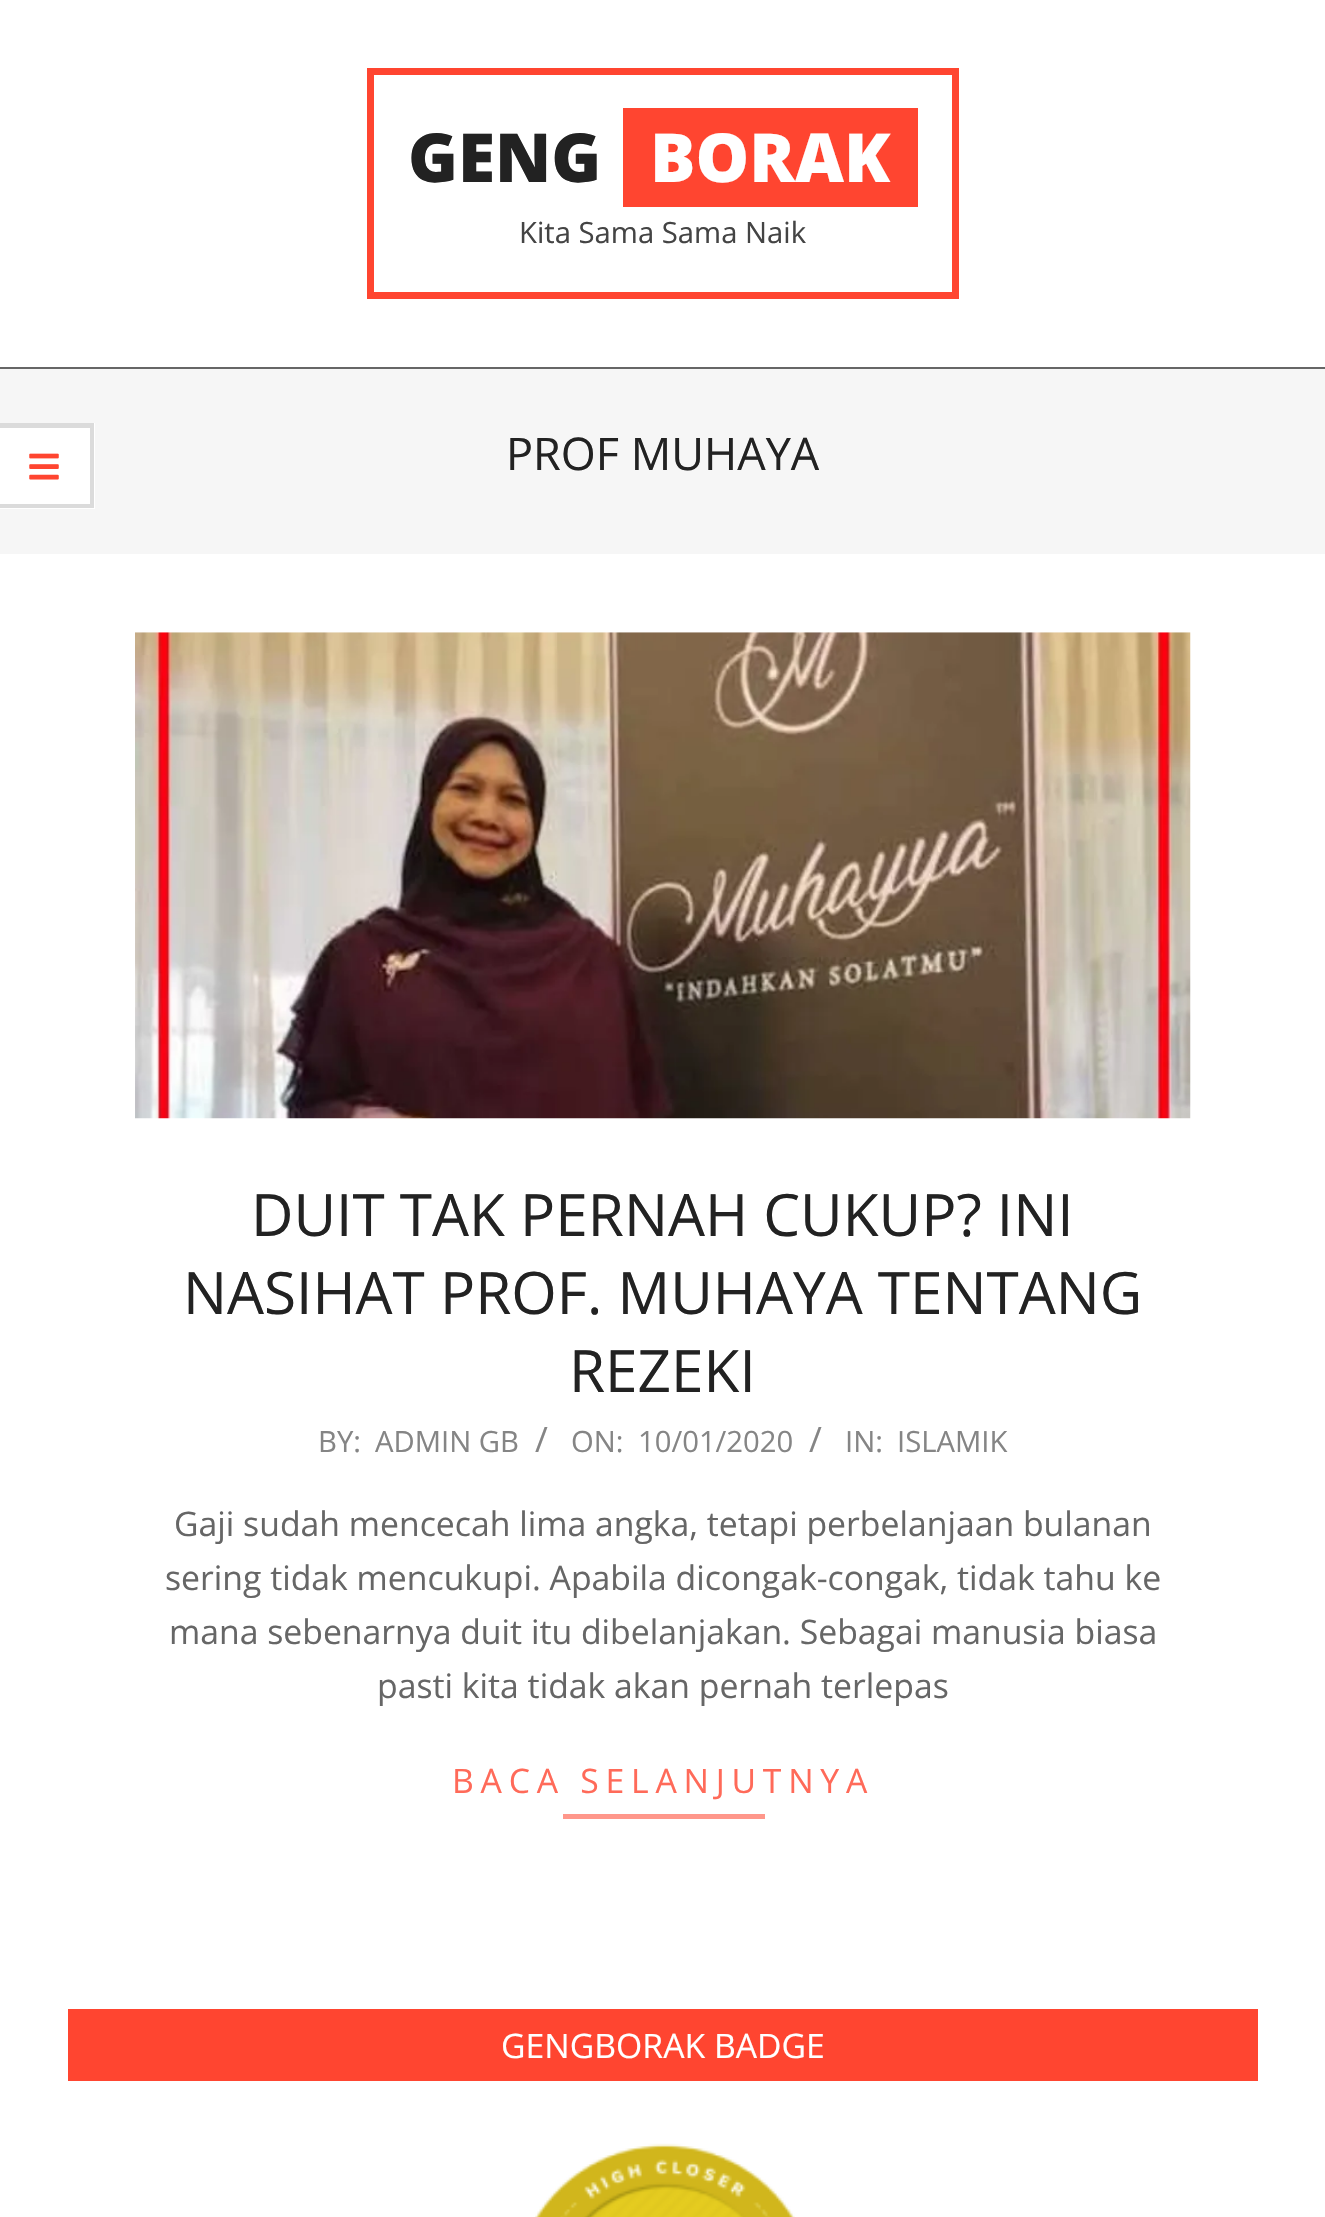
#include "include/core/SkBlurTypes.h"
#include "include/core/SkCanvas.h"
#include "include/core/SkData.h"
#include "include/core/SkFont.h"
#include "include/core/SkFontMgr.h"
#include "include/core/SkImage.h"
#include "include/core/SkMaskFilter.h"
#include "include/core/SkPaint.h"
#include "include/core/SkPathBuilder.h"
#include "include/core/SkTextBlob.h"
#include "include/effects/SkDashPathEffect.h"
#include "include/effects/SkGradientShader.h"
#include "include/utils/SkParsePath.h"

extern sk_sp<SkFontMgr> fontMgr;

void draw(SkCanvas* canvas) {
  SkPaint p;
  p.setAntiAlias(true);
  auto spacedText = [&](const char* s, float x, float y, const SkFont& font, const SkPaint& ink, float letter, float word) {
    std::vector<SkGlyphID> glyphs(font.countText(s, strlen(s), SkTextEncoding::kUTF8));
    std::vector<float> xs(glyphs.size());
    font.textToGlyphs(s, strlen(s), SkTextEncoding::kUTF8, glyphs);
    font.getXPos(glyphs, xs, x);
    float extra = 0;
    for (size_t i = 0; i < glyphs.size(); i++) {
      xs[i] += extra;
      extra += letter + word * (glyphs[i] == font.unicharToGlyph(' '));
    }
    canvas->drawTextBlob(SkTextBlob::MakeFromPosHGlyphs(glyphs, xs, y, font), 0, 0, ink);
  };
  canvas->clear(SK_ColorWHITE);
  p.setColor(SkColorSetRGB(102, 102, 102));
  canvas->drawRect(SkRect::MakeLTRB(0, 367, 1325, 369), p);
  p.setStyle(SkPaint::kStroke_Style);
  p.setStrokeWidth(7);
  p.setColor(SkColorSetRGB(255, 69, 48));
  canvas->drawRect(SkRect::MakeLTRB(370.5f, 71.5f, 955.5f, 295.5f), p);
  p.setStyle(SkPaint::kFill_Style);
  canvas->drawRect(SkRect::MakeLTRB(623, 108, 918, 207), p);
  p.setColor(SkColorSetRGB(246, 246, 246));
  canvas->drawRect(SkRect::MakeLTRB(0, 369, 1325, 554), p);
  p.setColor(SK_ColorWHITE);
  canvas->drawRect(SkRect::MakeLTRB(0, 423, 95, 509), p);
  p.setColor(SkColorSetRGB(219, 219, 219));
  canvas->drawPath(SkPathBuilder().moveTo(0, 423).lineTo(94, 423).lineTo(90, 428).lineTo(0, 428).close().detach(), p);
  p.setColor(SkColorSetARGB(36, 0, 0, 0));
  canvas->drawPath(SkPathBuilder().moveTo(94, 423).lineTo(94, 508).lineTo(90, 504).lineTo(90, 428).close().detach(), p);
  canvas->drawPath(SkPathBuilder().moveTo(94, 508).lineTo(0, 508).lineTo(0, 504).lineTo(90, 504).close().detach(), p);
  canvas->drawImageRect(SkImages::DeferredFromEncodedData(SkData::MakeFromFileName("images/1.png")), SkRect::MakeLTRB(29, 453, 59, 480), SkSamplingOptions());
  canvas->drawImageRect(SkImages::DeferredFromEncodedData(SkData::MakeFromFileName("images/2.png")), SkRect::MakeLTRB(135, 632, 1191, 1119), SkSamplingOptions());
  p.setColor(SkColorSetRGB(255, 151, 139));
  canvas->drawRect(SkRect::MakeLTRB(563, 1814, 765, 1819), p);
  p.setColor(SkColorSetRGB(255, 69, 48));
  canvas->drawRect(SkRect::MakeLTRB(68, 2009, 1258, 2081), p);
  canvas->drawImageRect(SkImages::DeferredFromEncodedData(SkData::MakeFromFileName("images/3.png")), SkRect::MakeLTRB(535, 2143, 795, 2217), SkSamplingOptions());
  SkFont font1(fontMgr->matchFamilyStyle("Open Sans", SkFontStyle(800, SkFontStyle::kNormal_Width, SkFontStyle::kUpright_Slant)), 67.5f);
  font1.setSubpixel(true);
  p.setColor(SkColorSetRGB(34, 34, 34));
  canvas->drawString("GENG", 408, 182, font1, p);
  p.setColor(SK_ColorWHITE);
  canvas->drawString("BORAK", 650, 182, font1, p);
  SkFont font2(fontMgr->matchFamilyStyle("Open Sans", SkFontStyle::Normal()), 29.25f);
  font2.setSubpixel(true);
  p.setColor(SkColorSetRGB(68, 68, 68));
  canvas->drawString("Kita Sama Sama Naik", 519, 243, font2, p);
  SkFont font3(fontMgr->matchFamilyStyle("Open Sans", SkFontStyle::Normal()), 45);
  font3.setSubpixel(true);
  p.setColor(SkColorSetRGB(34, 34, 34));
  canvas->drawString("PROF MUHAYA", 506, 470, font3, p);
  SkFont font4(fontMgr->matchFamilyStyle("Open Sans", SkFontStyle::Normal()), 58.5f);
  font4.setSubpixel(true);
  canvas->drawString("DUIT TAK PERNAH CUKUP? INI", 251, 1236, font4, p);
  canvas->drawString("NASIHAT PROF. MUHAYA TENTANG", 183, 1314, font4, p);
  canvas->drawString("REZEKI", 569, 1392, font4, p);
  p.setColor(SkColorSetRGB(133, 133, 133));
  canvas->drawString("BY:", 318, 1452, font2, p);
  canvas->drawString("ADMIN GB", 375, 1452, font2, p);
  SkFont font5(fontMgr->matchFamilyStyle("Open Sans", SkFontStyle::Normal()), 35);
  font5.setSubpixel(true);
  canvas->drawString("/", 535, 1452, font5, p);
  canvas->drawString("ON:", 571, 1452, font2, p);
  canvas->drawString("10/01/2020", 638, 1452, font2, p);
  canvas->drawString("/", 809, 1452, font5, p);
  canvas->drawString("IN:", 845, 1452, font2, p);
  canvas->drawString("ISLAMIK", 897, 1452, font2, p);
  SkFont font6(fontMgr->matchFamilyStyle("Open Sans", SkFontStyle::Normal()), 33.75f);
  font6.setSubpixel(true);
  p.setColor(SkColorSetRGB(102, 102, 102));
  canvas->drawString("Gaji sudah mencecah lima angka, tetapi perbelanjaan bulanan", 174, 1536, font6, p);
  canvas->drawString("sering tidak mencukupi. Apabila dicongak-congak, tidak tahu ke", 165, 1590, font6, p);
  canvas->drawString("mana sebenarnya duit itu dibelanjakan. Sebagai manusia biasa", 169, 1644, font6, p);
  canvas->drawString("pasti kita tidak akan pernah terlepas", 377, 1698, font6, p);
  p.setColor(SkColorSetRGB(255, 106, 89));
  spacedText("BACA SELANJUTNYA", 452, 1793, font6, p, 6.75f, 0);
  p.setColor(SK_ColorWHITE);
  canvas->drawString("GENGBORAK BADGE", 501, 2058, font6, p);
}
